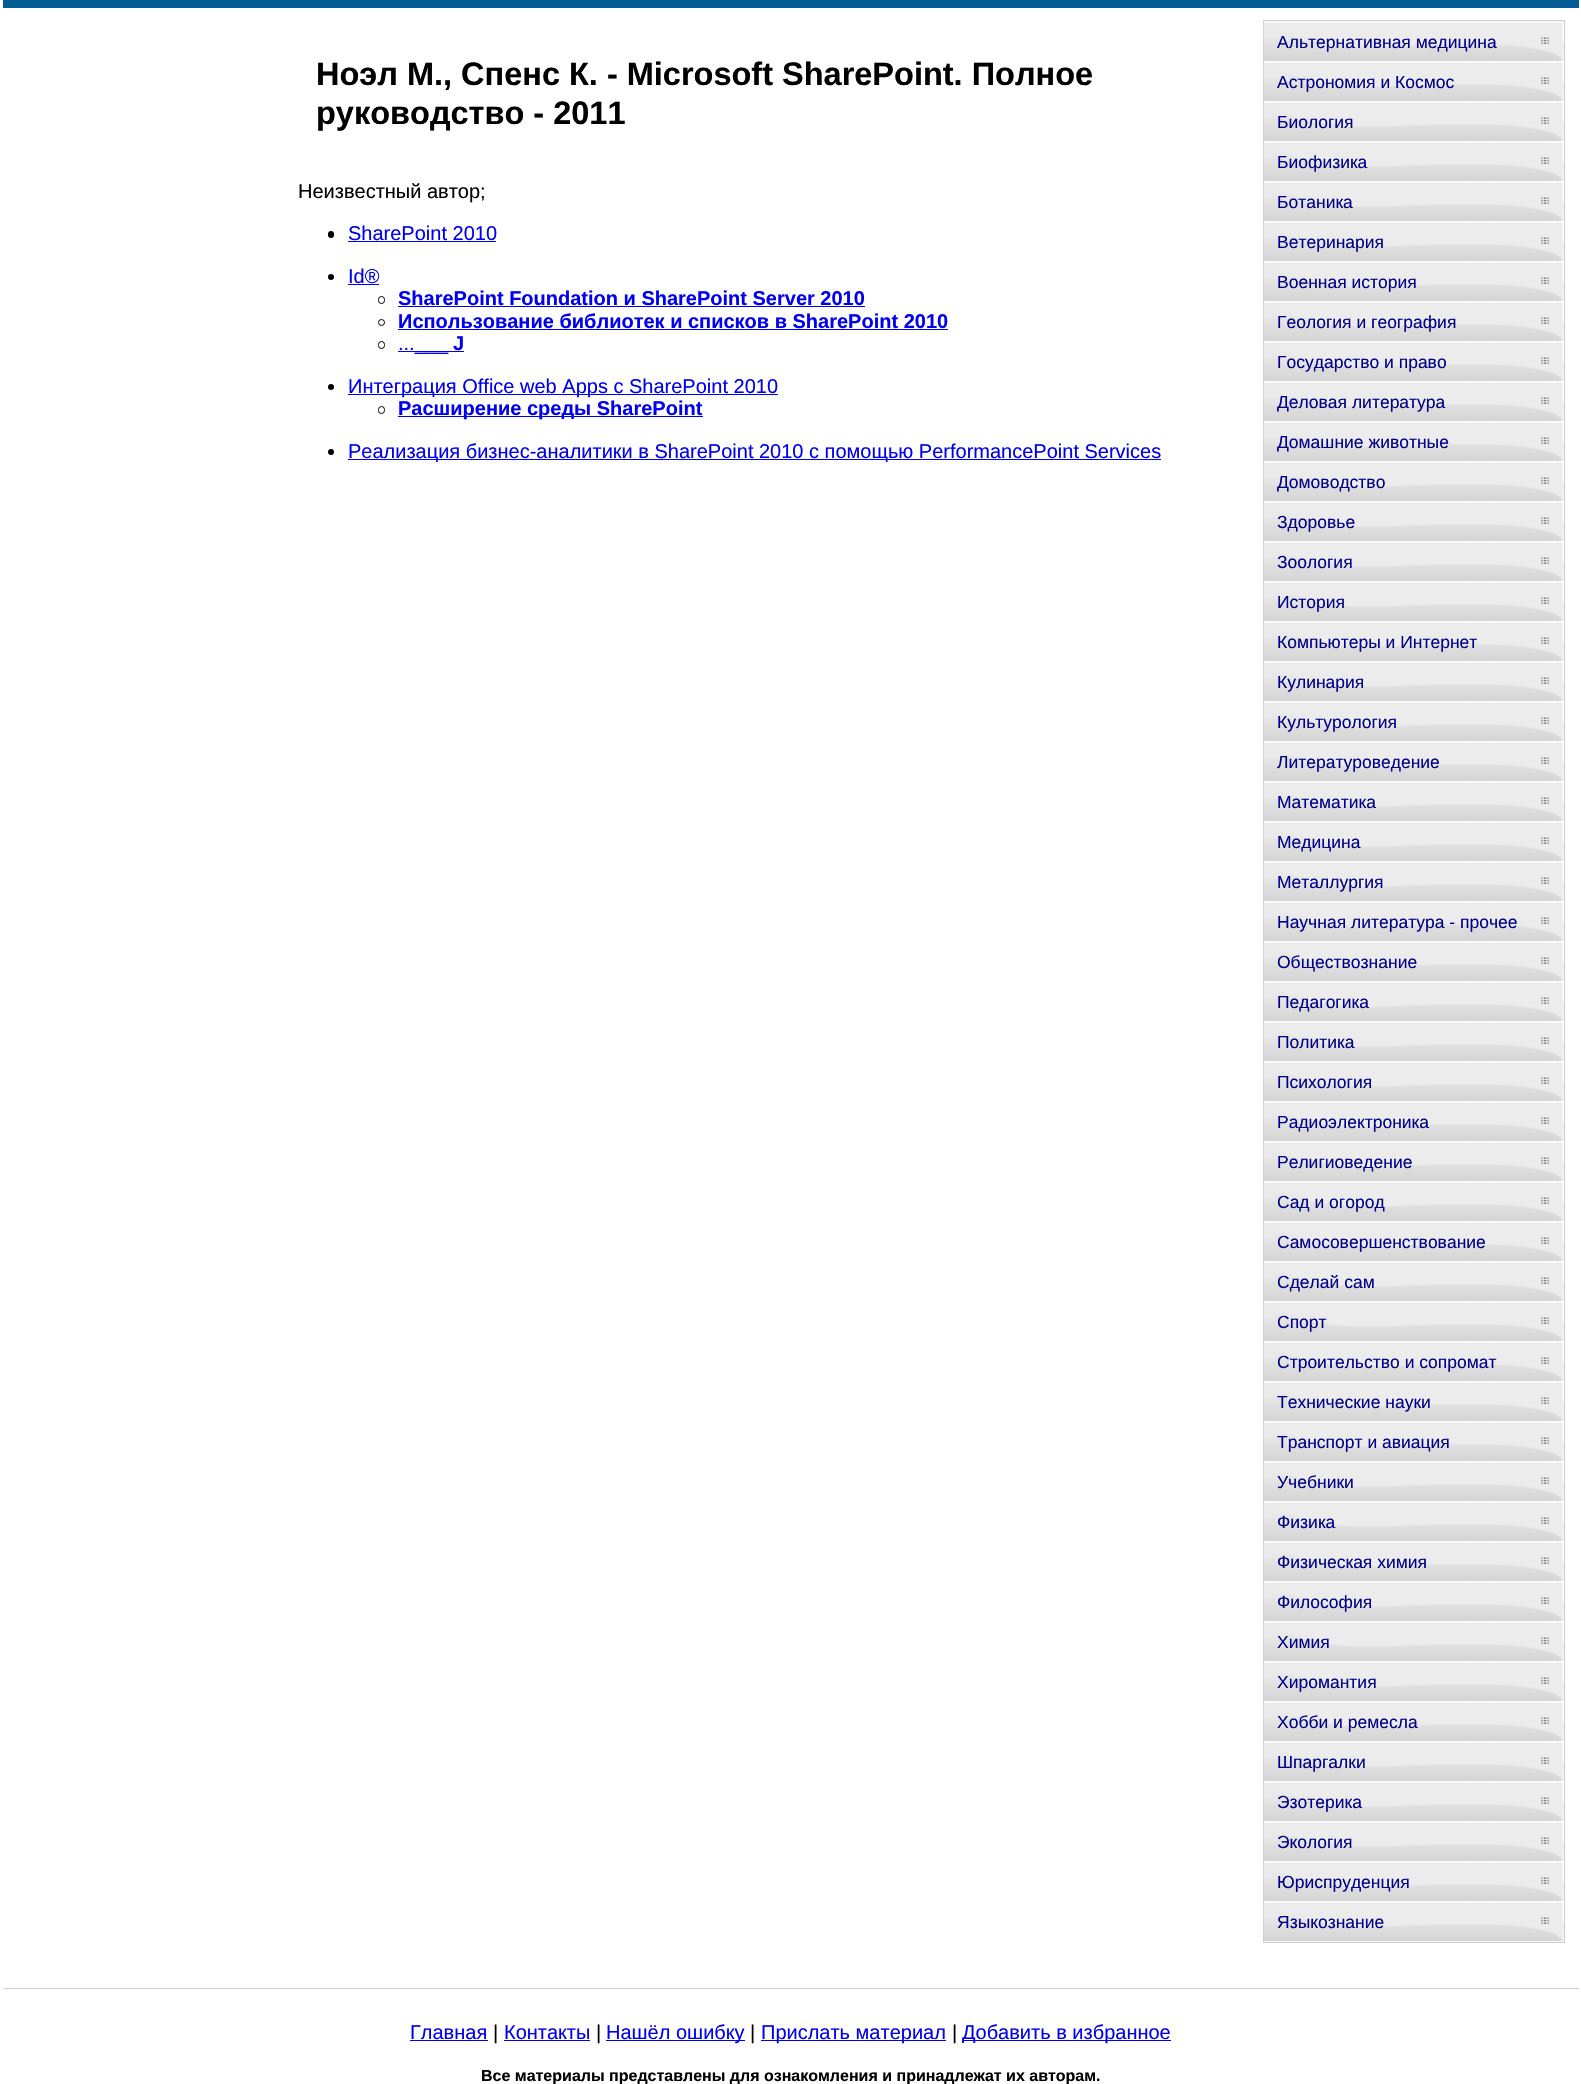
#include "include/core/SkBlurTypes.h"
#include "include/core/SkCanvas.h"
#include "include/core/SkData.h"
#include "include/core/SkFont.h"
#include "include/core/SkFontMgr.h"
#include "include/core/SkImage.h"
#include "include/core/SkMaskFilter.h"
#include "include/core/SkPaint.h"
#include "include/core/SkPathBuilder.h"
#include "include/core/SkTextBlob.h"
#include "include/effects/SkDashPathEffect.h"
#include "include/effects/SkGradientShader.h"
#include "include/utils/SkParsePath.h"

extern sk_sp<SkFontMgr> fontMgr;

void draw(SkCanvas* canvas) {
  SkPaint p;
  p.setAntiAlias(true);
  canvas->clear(SK_ColorWHITE);
  p.setColor(SkColorSetRGB(4, 92, 151));
  canvas->drawRect(SkRect::MakeLTRB(3, 0, 1579, 8), p);
  p.setColor(SK_ColorBLACK);
  canvas->drawRoundRect(SkRect::MakeLTRB(328, 231, 334, 238), 3, 3, p);
  p.setColor(SkColorSetRGB(0, 0, 238));
  canvas->drawRect(SkRect::MakeLTRB(348, 241, 496, 242), p);
  p.setColor(SK_ColorBLACK);
  canvas->drawCircle(331, 277, 3, p);
  p.setColor(SkColorSetRGB(0, 0, 238));
  canvas->drawRect(SkRect::MakeLTRB(348, 284, 379, 285), p);
  p.setStyle(SkPaint::kStroke_Style);
  p.setStrokeWidth(1);
  p.setColor(SK_ColorBLACK);
  canvas->drawRoundRect(SkRect::MakeLTRB(378.5f, 296.5f, 384.5f, 303.5f), 3, 3, p);
  p.setStyle(SkPaint::kFill_Style);
  p.setColor(SkColorSetRGB(0, 0, 238));
  canvas->drawRect(SkRect::MakeLTRB(398, 306, 865, 307), p);
  p.setStyle(SkPaint::kStroke_Style);
  p.setColor(SK_ColorBLACK);
  canvas->drawCircle(381.5f, 322.5f, 3, p);
  p.setStyle(SkPaint::kFill_Style);
  p.setColor(SkColorSetRGB(0, 0, 238));
  canvas->drawRect(SkRect::MakeLTRB(398, 329, 948, 330), p);
  p.setStyle(SkPaint::kStroke_Style);
  p.setColor(SK_ColorBLACK);
  canvas->drawRoundRect(SkRect::MakeLTRB(378.5f, 341.5f, 384.5f, 348.5f), 3, 3, p);
  p.setStyle(SkPaint::kFill_Style);
  p.setColor(SkColorSetRGB(0, 0, 238));
  canvas->drawRect(SkRect::MakeLTRB(398, 351, 464, 352), p);
  p.setColor(SK_ColorBLACK);
  canvas->drawCircle(331, 387, 3, p);
  p.setColor(SkColorSetRGB(0, 0, 238));
  canvas->drawRect(SkRect::MakeLTRB(348, 394, 778, 395), p);
  p.setStyle(SkPaint::kStroke_Style);
  p.setColor(SK_ColorBLACK);
  canvas->drawRoundRect(SkRect::MakeLTRB(378.5f, 406.5f, 384.5f, 413.5f), 3, 3, p);
  p.setStyle(SkPaint::kFill_Style);
  p.setColor(SkColorSetRGB(0, 0, 238));
  canvas->drawRect(SkRect::MakeLTRB(398, 416, 703, 417), p);
  p.setColor(SK_ColorBLACK);
  canvas->drawCircle(331, 452, 3, p);
  p.setColor(SkColorSetRGB(0, 0, 238));
  canvas->drawRect(SkRect::MakeLTRB(348, 459, 1161, 460), p);
  p.setStyle(SkPaint::kStroke_Style);
  p.setColor(SkColorSetRGB(204, 204, 204));
  canvas->drawRect(SkRect::MakeLTRB(1263.5f, 20.5f, 1564.5f, 1942.5f), p);
  canvas->drawImageRect(SkImages::DeferredFromEncodedData(SkData::MakeFromFileName("images/1.png")), SkRect::MakeLTRB(1263, 21, 1564, 62), SkSamplingOptions());
  canvas->drawImageRect(SkImages::DeferredFromEncodedData(SkData::MakeFromFileName("images/2.png")), SkRect::MakeLTRB(1263, 61, 1564, 102), SkSamplingOptions());
  canvas->drawImageRect(SkImages::DeferredFromEncodedData(SkData::MakeFromFileName("images/3.png")), SkRect::MakeLTRB(1263, 101, 1564, 142), SkSamplingOptions());
  canvas->drawImageRect(SkImages::DeferredFromEncodedData(SkData::MakeFromFileName("images/2.png")), SkRect::MakeLTRB(1263, 141, 1564, 182), SkSamplingOptions());
  canvas->drawImageRect(SkImages::DeferredFromEncodedData(SkData::MakeFromFileName("images/2.png")), SkRect::MakeLTRB(1263, 181, 1564, 222), SkSamplingOptions());
  canvas->drawImageRect(SkImages::DeferredFromEncodedData(SkData::MakeFromFileName("images/2.png")), SkRect::MakeLTRB(1263, 221, 1564, 262), SkSamplingOptions());
  canvas->drawImageRect(SkImages::DeferredFromEncodedData(SkData::MakeFromFileName("images/2.png")), SkRect::MakeLTRB(1263, 261, 1564, 302), SkSamplingOptions());
  canvas->drawImageRect(SkImages::DeferredFromEncodedData(SkData::MakeFromFileName("images/2.png")), SkRect::MakeLTRB(1263, 301, 1564, 342), SkSamplingOptions());
  canvas->drawImageRect(SkImages::DeferredFromEncodedData(SkData::MakeFromFileName("images/2.png")), SkRect::MakeLTRB(1263, 341, 1564, 382), SkSamplingOptions());
  canvas->drawImageRect(SkImages::DeferredFromEncodedData(SkData::MakeFromFileName("images/4.png")), SkRect::MakeLTRB(1263, 381, 1564, 422), SkSamplingOptions());
  canvas->drawImageRect(SkImages::DeferredFromEncodedData(SkData::MakeFromFileName("images/2.png")), SkRect::MakeLTRB(1263, 421, 1564, 462), SkSamplingOptions());
  canvas->drawImageRect(SkImages::DeferredFromEncodedData(SkData::MakeFromFileName("images/2.png")), SkRect::MakeLTRB(1263, 461, 1564, 502), SkSamplingOptions());
  canvas->drawImageRect(SkImages::DeferredFromEncodedData(SkData::MakeFromFileName("images/2.png")), SkRect::MakeLTRB(1263, 501, 1564, 542), SkSamplingOptions());
  canvas->drawImageRect(SkImages::DeferredFromEncodedData(SkData::MakeFromFileName("images/2.png")), SkRect::MakeLTRB(1263, 541, 1564, 582), SkSamplingOptions());
  canvas->drawImageRect(SkImages::DeferredFromEncodedData(SkData::MakeFromFileName("images/2.png")), SkRect::MakeLTRB(1263, 581, 1564, 622), SkSamplingOptions());
  canvas->drawImageRect(SkImages::DeferredFromEncodedData(SkData::MakeFromFileName("images/2.png")), SkRect::MakeLTRB(1263, 621, 1564, 662), SkSamplingOptions());
  canvas->drawImageRect(SkImages::DeferredFromEncodedData(SkData::MakeFromFileName("images/2.png")), SkRect::MakeLTRB(1263, 661, 1564, 702), SkSamplingOptions());
  canvas->drawImageRect(SkImages::DeferredFromEncodedData(SkData::MakeFromFileName("images/2.png")), SkRect::MakeLTRB(1263, 701, 1564, 742), SkSamplingOptions());
  canvas->drawImageRect(SkImages::DeferredFromEncodedData(SkData::MakeFromFileName("images/2.png")), SkRect::MakeLTRB(1263, 741, 1564, 782), SkSamplingOptions());
  canvas->drawImageRect(SkImages::DeferredFromEncodedData(SkData::MakeFromFileName("images/2.png")), SkRect::MakeLTRB(1263, 781, 1564, 822), SkSamplingOptions());
  canvas->drawImageRect(SkImages::DeferredFromEncodedData(SkData::MakeFromFileName("images/2.png")), SkRect::MakeLTRB(1263, 821, 1564, 862), SkSamplingOptions());
  canvas->drawImageRect(SkImages::DeferredFromEncodedData(SkData::MakeFromFileName("images/2.png")), SkRect::MakeLTRB(1263, 861, 1564, 902), SkSamplingOptions());
  canvas->drawImageRect(SkImages::DeferredFromEncodedData(SkData::MakeFromFileName("images/2.png")), SkRect::MakeLTRB(1263, 901, 1564, 942), SkSamplingOptions());
  canvas->drawImageRect(SkImages::DeferredFromEncodedData(SkData::MakeFromFileName("images/2.png")), SkRect::MakeLTRB(1263, 941, 1564, 982), SkSamplingOptions());
  canvas->drawImageRect(SkImages::DeferredFromEncodedData(SkData::MakeFromFileName("images/3.png")), SkRect::MakeLTRB(1263, 981, 1564, 1022), SkSamplingOptions());
  canvas->drawImageRect(SkImages::DeferredFromEncodedData(SkData::MakeFromFileName("images/2.png")), SkRect::MakeLTRB(1263, 1021, 1564, 1062), SkSamplingOptions());
  canvas->drawImageRect(SkImages::DeferredFromEncodedData(SkData::MakeFromFileName("images/2.png")), SkRect::MakeLTRB(1263, 1061, 1564, 1102), SkSamplingOptions());
  canvas->drawImageRect(SkImages::DeferredFromEncodedData(SkData::MakeFromFileName("images/2.png")), SkRect::MakeLTRB(1263, 1101, 1564, 1142), SkSamplingOptions());
  canvas->drawImageRect(SkImages::DeferredFromEncodedData(SkData::MakeFromFileName("images/2.png")), SkRect::MakeLTRB(1263, 1141, 1564, 1182), SkSamplingOptions());
  canvas->drawImageRect(SkImages::DeferredFromEncodedData(SkData::MakeFromFileName("images/2.png")), SkRect::MakeLTRB(1263, 1181, 1564, 1222), SkSamplingOptions());
  canvas->drawImageRect(SkImages::DeferredFromEncodedData(SkData::MakeFromFileName("images/2.png")), SkRect::MakeLTRB(1263, 1221, 1564, 1262), SkSamplingOptions());
  canvas->drawImageRect(SkImages::DeferredFromEncodedData(SkData::MakeFromFileName("images/2.png")), SkRect::MakeLTRB(1263, 1261, 1564, 1302), SkSamplingOptions());
  canvas->drawImageRect(SkImages::DeferredFromEncodedData(SkData::MakeFromFileName("images/2.png")), SkRect::MakeLTRB(1263, 1301, 1564, 1342), SkSamplingOptions());
  canvas->drawImageRect(SkImages::DeferredFromEncodedData(SkData::MakeFromFileName("images/2.png")), SkRect::MakeLTRB(1263, 1341, 1564, 1382), SkSamplingOptions());
  canvas->drawImageRect(SkImages::DeferredFromEncodedData(SkData::MakeFromFileName("images/5.png")), SkRect::MakeLTRB(1263, 1381, 1564, 1422), SkSamplingOptions());
  canvas->drawImageRect(SkImages::DeferredFromEncodedData(SkData::MakeFromFileName("images/2.png")), SkRect::MakeLTRB(1263, 1421, 1564, 1462), SkSamplingOptions());
  canvas->drawImageRect(SkImages::DeferredFromEncodedData(SkData::MakeFromFileName("images/2.png")), SkRect::MakeLTRB(1263, 1461, 1564, 1502), SkSamplingOptions());
  canvas->drawImageRect(SkImages::DeferredFromEncodedData(SkData::MakeFromFileName("images/2.png")), SkRect::MakeLTRB(1263, 1501, 1564, 1542), SkSamplingOptions());
  canvas->drawImageRect(SkImages::DeferredFromEncodedData(SkData::MakeFromFileName("images/2.png")), SkRect::MakeLTRB(1263, 1541, 1564, 1582), SkSamplingOptions());
  canvas->drawImageRect(SkImages::DeferredFromEncodedData(SkData::MakeFromFileName("images/2.png")), SkRect::MakeLTRB(1263, 1581, 1564, 1622), SkSamplingOptions());
  canvas->drawImageRect(SkImages::DeferredFromEncodedData(SkData::MakeFromFileName("images/2.png")), SkRect::MakeLTRB(1263, 1621, 1564, 1662), SkSamplingOptions());
  canvas->drawImageRect(SkImages::DeferredFromEncodedData(SkData::MakeFromFileName("images/6.png")), SkRect::MakeLTRB(1263, 1661, 1564, 1702), SkSamplingOptions());
  canvas->drawImageRect(SkImages::DeferredFromEncodedData(SkData::MakeFromFileName("images/2.png")), SkRect::MakeLTRB(1263, 1701, 1564, 1742), SkSamplingOptions());
  canvas->drawImageRect(SkImages::DeferredFromEncodedData(SkData::MakeFromFileName("images/2.png")), SkRect::MakeLTRB(1263, 1741, 1564, 1782), SkSamplingOptions());
  canvas->drawImageRect(SkImages::DeferredFromEncodedData(SkData::MakeFromFileName("images/2.png")), SkRect::MakeLTRB(1263, 1781, 1564, 1822), SkSamplingOptions());
  canvas->drawImageRect(SkImages::DeferredFromEncodedData(SkData::MakeFromFileName("images/2.png")), SkRect::MakeLTRB(1263, 1821, 1564, 1862), SkSamplingOptions());
  canvas->drawImageRect(SkImages::DeferredFromEncodedData(SkData::MakeFromFileName("images/2.png")), SkRect::MakeLTRB(1263, 1861, 1564, 1902), SkSamplingOptions());
  canvas->drawImageRect(SkImages::DeferredFromEncodedData(SkData::MakeFromFileName("images/2.png")), SkRect::MakeLTRB(1263, 1901, 1564, 1942), SkSamplingOptions());
  p.setStyle(SkPaint::kFill_Style);
  canvas->drawRect(SkRect::MakeLTRB(4, 1988, 1579, 1989), p);
  p.setColor(SkColorSetRGB(0, 0, 238));
  canvas->drawRect(SkRect::MakeLTRB(410, 2040, 488, 2041), p);
  canvas->drawRect(SkRect::MakeLTRB(504, 2040, 590, 2041), p);
  canvas->drawRect(SkRect::MakeLTRB(606, 2040, 745, 2041), p);
  canvas->drawRect(SkRect::MakeLTRB(761, 2040, 946, 2041), p);
  canvas->drawRect(SkRect::MakeLTRB(963, 2040, 1171, 2041), p);
  SkFont font1(fontMgr->matchFamilyStyle("Liberation Sans", SkFontStyle::Bold()), 32.5f);
  font1.setSubpixel(true);
  p.setColor(SK_ColorBLACK);
  canvas->drawString("Ноэл М., Спенс К. - Microsoft SharePoint. Полное", 316, 85, font1, p);
  canvas->drawString("руководство - 2011", 316, 124, font1, p);
  SkFont font2(fontMgr->matchFamilyStyle("Liberation Sans", SkFontStyle::Normal()), 20);
  font2.setSubpixel(true);
  canvas->drawString("Неизвестный автор;", 298, 198, font2, p);
  p.setColor(SkColorSetRGB(0, 0, 238));
  canvas->drawString("SharePoint 2010", 348, 240, font2, p);
  canvas->drawString("Id®", 348, 283, font2, p);
  SkFont font3(fontMgr->matchFamilyStyle("Liberation Sans", SkFontStyle::Bold()), 20);
  font3.setSubpixel(true);
  canvas->drawString("SharePoint Foundation и SharePoint Server 2010", 398, 305, font3, p);
  canvas->drawString("Использование библиотек и списков в SharePoint 2010", 398, 328, font3, p);
  canvas->drawString("J", 453, 350, font3, p);
  canvas->drawString("...___", 398, 350, font2, p);
  canvas->drawString("Интеграция Office web Apps с SharePoint 2010", 348, 393, font2, p);
  canvas->drawString("Расширение среды SharePoint", 398, 415, font3, p);
  canvas->drawString("Реализация бизнес-аналитики в SharePoint 2010 с помощью PerformancePoint Services", 348, 458, font2, p);
  SkFont font4(fontMgr->matchFamilyStyle("Liberation Sans", SkFontStyle::Normal()), 17.5f);
  font4.setSubpixel(true);
  p.setColor(SkColorSetRGB(0, 0, 136));
  canvas->drawString("Альтернативная медицина", 1277, 48, font4, p);
  canvas->drawString("Астрономия и Космос", 1277, 88, font4, p);
  canvas->drawString("Биология", 1277, 128, font4, p);
  canvas->drawString("Биофизика", 1277, 168, font4, p);
  canvas->drawString("Ботаника", 1277, 208, font4, p);
  canvas->drawString("Ветеринария", 1277, 248, font4, p);
  canvas->drawString("Военная история", 1277, 288, font4, p);
  canvas->drawString("Геология и география", 1277, 328, font4, p);
  canvas->drawString("Государство и право", 1277, 368, font4, p);
  canvas->drawString("Деловая литература", 1277, 408, font4, p);
  canvas->drawString("Домашние животные", 1277, 448, font4, p);
  canvas->drawString("Домоводство", 1277, 488, font4, p);
  canvas->drawString("Здоровье", 1277, 528, font4, p);
  canvas->drawString("Зоология", 1277, 568, font4, p);
  canvas->drawString("История", 1277, 608, font4, p);
  canvas->drawString("Компьютеры и Интернет", 1277, 648, font4, p);
  canvas->drawString("Кулинария", 1277, 688, font4, p);
  canvas->drawString("Культурология", 1277, 728, font4, p);
  canvas->drawString("Литературоведение", 1277, 768, font4, p);
  canvas->drawString("Математика", 1277, 808, font4, p);
  canvas->drawString("Медицина", 1277, 848, font4, p);
  canvas->drawString("Металлургия", 1277, 888, font4, p);
  canvas->drawString("Научная литература - прочее", 1277, 928, font4, p);
  canvas->drawString("Обществознание", 1277, 968, font4, p);
  canvas->drawString("Педагогика", 1277, 1008, font4, p);
  canvas->drawString("Политика", 1277, 1048, font4, p);
  canvas->drawString("Психология", 1277, 1088, font4, p);
  canvas->drawString("Радиоэлектроника", 1277, 1128, font4, p);
  canvas->drawString("Религиоведение", 1277, 1168, font4, p);
  canvas->drawString("Сад и огород", 1277, 1208, font4, p);
  canvas->drawString("Самосовершенствование", 1277, 1248, font4, p);
  canvas->drawString("Сделай сам", 1277, 1288, font4, p);
  canvas->drawString("Спорт", 1277, 1328, font4, p);
  canvas->drawString("Строительство и сопромат", 1277, 1368, font4, p);
  canvas->drawString("Технические науки", 1277, 1408, font4, p);
  canvas->drawString("Транспорт и авиация", 1277, 1448, font4, p);
  canvas->drawString("Учебники", 1277, 1488, font4, p);
  canvas->drawString("Физика", 1277, 1528, font4, p);
  canvas->drawString("Физическая химия", 1277, 1568, font4, p);
  canvas->drawString("Философия", 1277, 1608, font4, p);
  canvas->drawString("Химия", 1277, 1648, font4, p);
  canvas->drawString("Хиромантия", 1277, 1688, font4, p);
  canvas->drawString("Хобби и ремесла", 1277, 1728, font4, p);
  canvas->drawString("Шпаргалки", 1277, 1768, font4, p);
  canvas->drawString("Эзотерика", 1277, 1808, font4, p);
  canvas->drawString("Экология", 1277, 1848, font4, p);
  canvas->drawString("Юриспруденция", 1277, 1888, font4, p);
  canvas->drawString("Языкознание", 1277, 1928, font4, p);
  p.setColor(SkColorSetRGB(0, 0, 238));
  canvas->drawString("Главная", 410, 2039, font2, p);
  p.setColor(SK_ColorBLACK);
  canvas->drawString("|", 493, 2039, font2, p);
  p.setColor(SkColorSetRGB(0, 0, 238));
  canvas->drawString("Контакты", 504, 2039, font2, p);
  p.setColor(SK_ColorBLACK);
  canvas->drawString("|", 596, 2039, font2, p);
  p.setColor(SkColorSetRGB(0, 0, 238));
  canvas->drawString("Нашёл ошибку", 606, 2039, font2, p);
  p.setColor(SK_ColorBLACK);
  canvas->drawString("|", 750, 2039, font2, p);
  p.setColor(SkColorSetRGB(0, 0, 238));
  canvas->drawString("Прислать материал", 761, 2039, font2, p);
  p.setColor(SK_ColorBLACK);
  canvas->drawString("|", 952, 2039, font2, p);
  p.setColor(SkColorSetRGB(0, 0, 238));
  canvas->drawString("Добавить в избранное", 962, 2039, font2, p);
  SkFont font5(fontMgr->matchFamilyStyle("Liberation Sans", SkFontStyle::Bold()), 16);
  font5.setSubpixel(true);
  p.setColor(SK_ColorBLACK);
  canvas->drawString("Все материалы представлены для ознакомления и принадлежат их авторам.", 481, 2081, font5, p);
}
